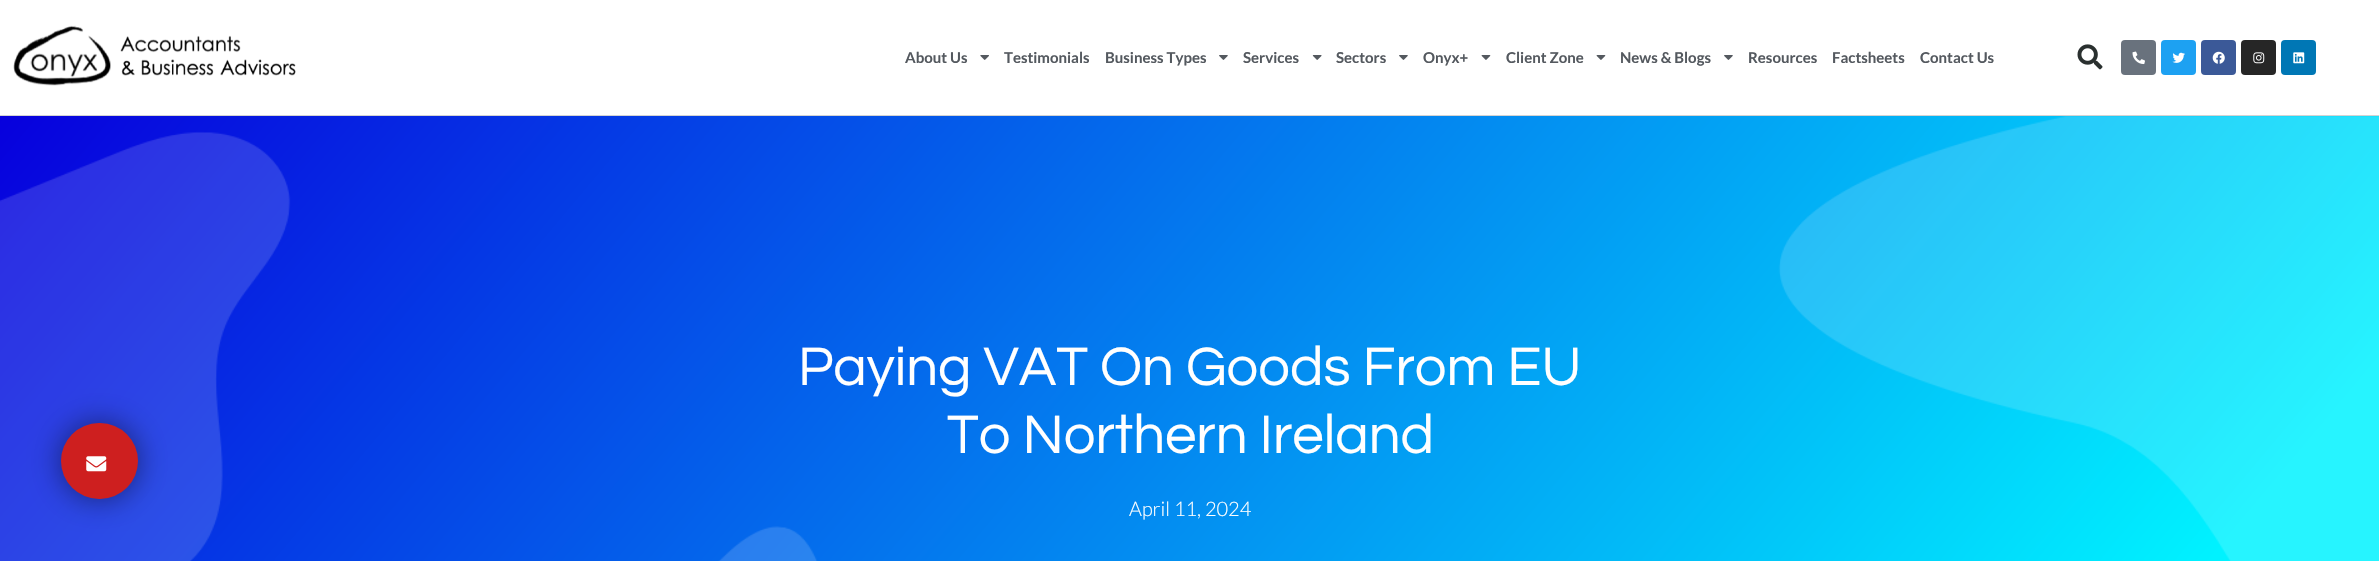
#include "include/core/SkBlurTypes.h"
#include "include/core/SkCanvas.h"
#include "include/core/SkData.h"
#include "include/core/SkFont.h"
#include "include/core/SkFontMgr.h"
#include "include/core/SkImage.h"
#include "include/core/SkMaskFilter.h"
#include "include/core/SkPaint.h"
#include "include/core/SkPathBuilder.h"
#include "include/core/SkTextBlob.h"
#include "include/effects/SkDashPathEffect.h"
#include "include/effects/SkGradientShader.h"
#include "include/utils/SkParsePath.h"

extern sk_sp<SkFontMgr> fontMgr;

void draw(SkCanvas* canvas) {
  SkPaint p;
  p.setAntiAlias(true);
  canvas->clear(SK_ColorWHITE);
  p.setColor(SkColorSetRGB(211, 211, 211));
  canvas->drawRect(SkRect::MakeLTRB(0, 115, 2379, 116), p);
  canvas->drawImageRect(SkImages::DeferredFromEncodedData(SkData::MakeFromFileName("images/1.png")), SkRect::MakeLTRB(13, 25, 296, 86), SkSamplingOptions());
  canvas->drawImageRect(SkImages::DeferredFromEncodedData(SkData::MakeFromFileName("images/2.png")), SkRect::MakeLTRB(980, 55, 989, 60), SkSamplingOptions());
  canvas->drawImageRect(SkImages::DeferredFromEncodedData(SkData::MakeFromFileName("images/3.png")), SkRect::MakeLTRB(1219, 55, 1228, 60), SkSamplingOptions());
  canvas->drawImageRect(SkImages::DeferredFromEncodedData(SkData::MakeFromFileName("images/4.png")), SkRect::MakeLTRB(1312, 55, 1322, 60), SkSamplingOptions());
  canvas->drawImageRect(SkImages::DeferredFromEncodedData(SkData::MakeFromFileName("images/3.png")), SkRect::MakeLTRB(1399, 55, 1408, 60), SkSamplingOptions());
  canvas->drawImageRect(SkImages::DeferredFromEncodedData(SkData::MakeFromFileName("images/5.png")), SkRect::MakeLTRB(1481, 55, 1491, 60), SkSamplingOptions());
  canvas->drawImageRect(SkImages::DeferredFromEncodedData(SkData::MakeFromFileName("images/5.png")), SkRect::MakeLTRB(1596, 55, 1606, 60), SkSamplingOptions());
  canvas->drawImageRect(SkImages::DeferredFromEncodedData(SkData::MakeFromFileName("images/3.png")), SkRect::MakeLTRB(1724, 55, 1733, 60), SkSamplingOptions());
  canvas->drawImageRect(SkImages::DeferredFromEncodedData(SkData::MakeFromFileName("images/6.png")), SkRect::MakeLTRB(2077, 44, 2103, 70), SkSamplingOptions());
  p.setColor(SkColorSetRGB(105, 114, 125));
  canvas->drawRoundRect(SkRect::MakeLTRB(2121, 40, 2156, 75), 4, 4, p);
  canvas->drawImageRect(SkImages::DeferredFromEncodedData(SkData::MakeFromFileName("images/7.png")), SkRect::MakeLTRB(2132, 51, 2145, 65), SkSamplingOptions());
  p.setColor(SkColorSetRGB(29, 161, 242));
  canvas->drawRoundRect(SkRect::MakeLTRB(2161, 40, 2196, 75), 4, 4, p);
  canvas->drawImageRect(SkImages::DeferredFromEncodedData(SkData::MakeFromFileName("images/8.png")), SkRect::MakeLTRB(2172, 52, 2185, 63), SkSamplingOptions());
  p.setColor(SkColorSetRGB(59, 89, 152));
  canvas->drawRoundRect(SkRect::MakeLTRB(2201, 40, 2236, 75), 4, 4, p);
  canvas->drawImageRect(SkImages::DeferredFromEncodedData(SkData::MakeFromFileName("images/9.png")), SkRect::MakeLTRB(2212, 51, 2225, 64), SkSamplingOptions());
  p.setColor(SkColorSetRGB(38, 38, 38));
  canvas->drawRoundRect(SkRect::MakeLTRB(2241, 40, 2276, 75), 4, 4, p);
  canvas->drawImageRect(SkImages::DeferredFromEncodedData(SkData::MakeFromFileName("images/10.png")), SkRect::MakeLTRB(2253, 52, 2265, 64), SkSamplingOptions());
  p.setColor(SkColorSetRGB(0, 119, 181));
  canvas->drawRoundRect(SkRect::MakeLTRB(2281, 40, 2316, 75), 4, 4, p);
  canvas->drawImageRect(SkImages::DeferredFromEncodedData(SkData::MakeFromFileName("images/11.png")), SkRect::MakeLTRB(2293, 52, 2305, 64), SkSamplingOptions());
  {
    const SkColor colors[] = {SkColorSetRGB(7, 0, 221), SkColorSetRGB(0, 242, 255)};
    const float stops[] = {0, 0.89f};
    const SkPoint ends[] = {{338, -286}, {2042, 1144}};
    p.setShader(SkGradientShader::MakeLinear(ends, colors, stops, 2, SkTileMode::kClamp));
    p.setAlpha(255);
  }
  canvas->drawRect(SkRect::MakeLTRB(0, 116, 2379, 561), p);
  canvas->drawImageRect(SkImages::DeferredFromEncodedData(SkData::MakeFromFileName("images/13.png")), SkRect::MakeLTRB(0, 116, 2379, 561), SkSamplingOptions());
  p.setShader(nullptr);
  p.setColor(SkColorSetARGB(128, 0, 0, 0));
  p.setMaskFilter(SkMaskFilter::MakeBlur(kNormal_SkBlurStyle, 15.5f));
  canvas->drawRoundRect(SkRect::MakeLTRB(61, 423, 138, 499), 38, 38, p);
  p.setMaskFilter(nullptr);
  p.setColor(SkColorSetRGB(206, 31, 31));
  canvas->drawRoundRect(SkRect::MakeLTRB(61, 423, 138, 499), 38, 38, p);
  canvas->drawImageRect(SkImages::DeferredFromEncodedData(SkData::MakeFromFileName("images/12.png")), SkRect::MakeLTRB(86, 456, 107, 472), SkSamplingOptions());
  SkFont font1(fontMgr->matchFamilyStyle("Lato", SkFontStyle::Bold()), 15);
  font1.setSubpixel(true);
  p.setColor(SkColorSetRGB(84, 89, 95));
  canvas->drawString("About Us", 905, 63, font1, p);
  canvas->drawString("Testimonials", 1004, 63, font1, p);
  canvas->drawString("Business Types", 1105, 63, font1, p);
  canvas->drawString("Services", 1243, 63, font1, p);
  canvas->drawString("Sectors", 1336, 63, font1, p);
  canvas->drawString("Onyx+", 1423, 63, font1, p);
  canvas->drawString("Client Zone", 1506, 63, font1, p);
  canvas->drawString("News & Blogs", 1620, 63, font1, p);
  canvas->drawString("Resources", 1748, 63, font1, p);
  canvas->drawString("Factsheets", 1832, 63, font1, p);
  canvas->drawString("Contact Us", 1920, 63, font1, p);
  SkFont font2(fontMgr->matchFamilyStyle("Questrial", SkFontStyle::Normal()), 56.25f);
  font2.setSubpixel(true);
  p.setColor(SK_ColorWHITE);
  canvas->drawString("Paying VAT On Goods From EU", 798, 385, font2, p);
  canvas->drawString("To Northern Ireland", 947, 453, font2, p);
  SkFont font3(fontMgr->matchFamilyStyle("Lato", SkFontStyle(300, SkFontStyle::kNormal_Width, SkFontStyle::kUpright_Slant)), 20);
  font3.setSubpixel(true);
  canvas->drawString("April 11, 2024", 1129, 516, font3, p);
}
